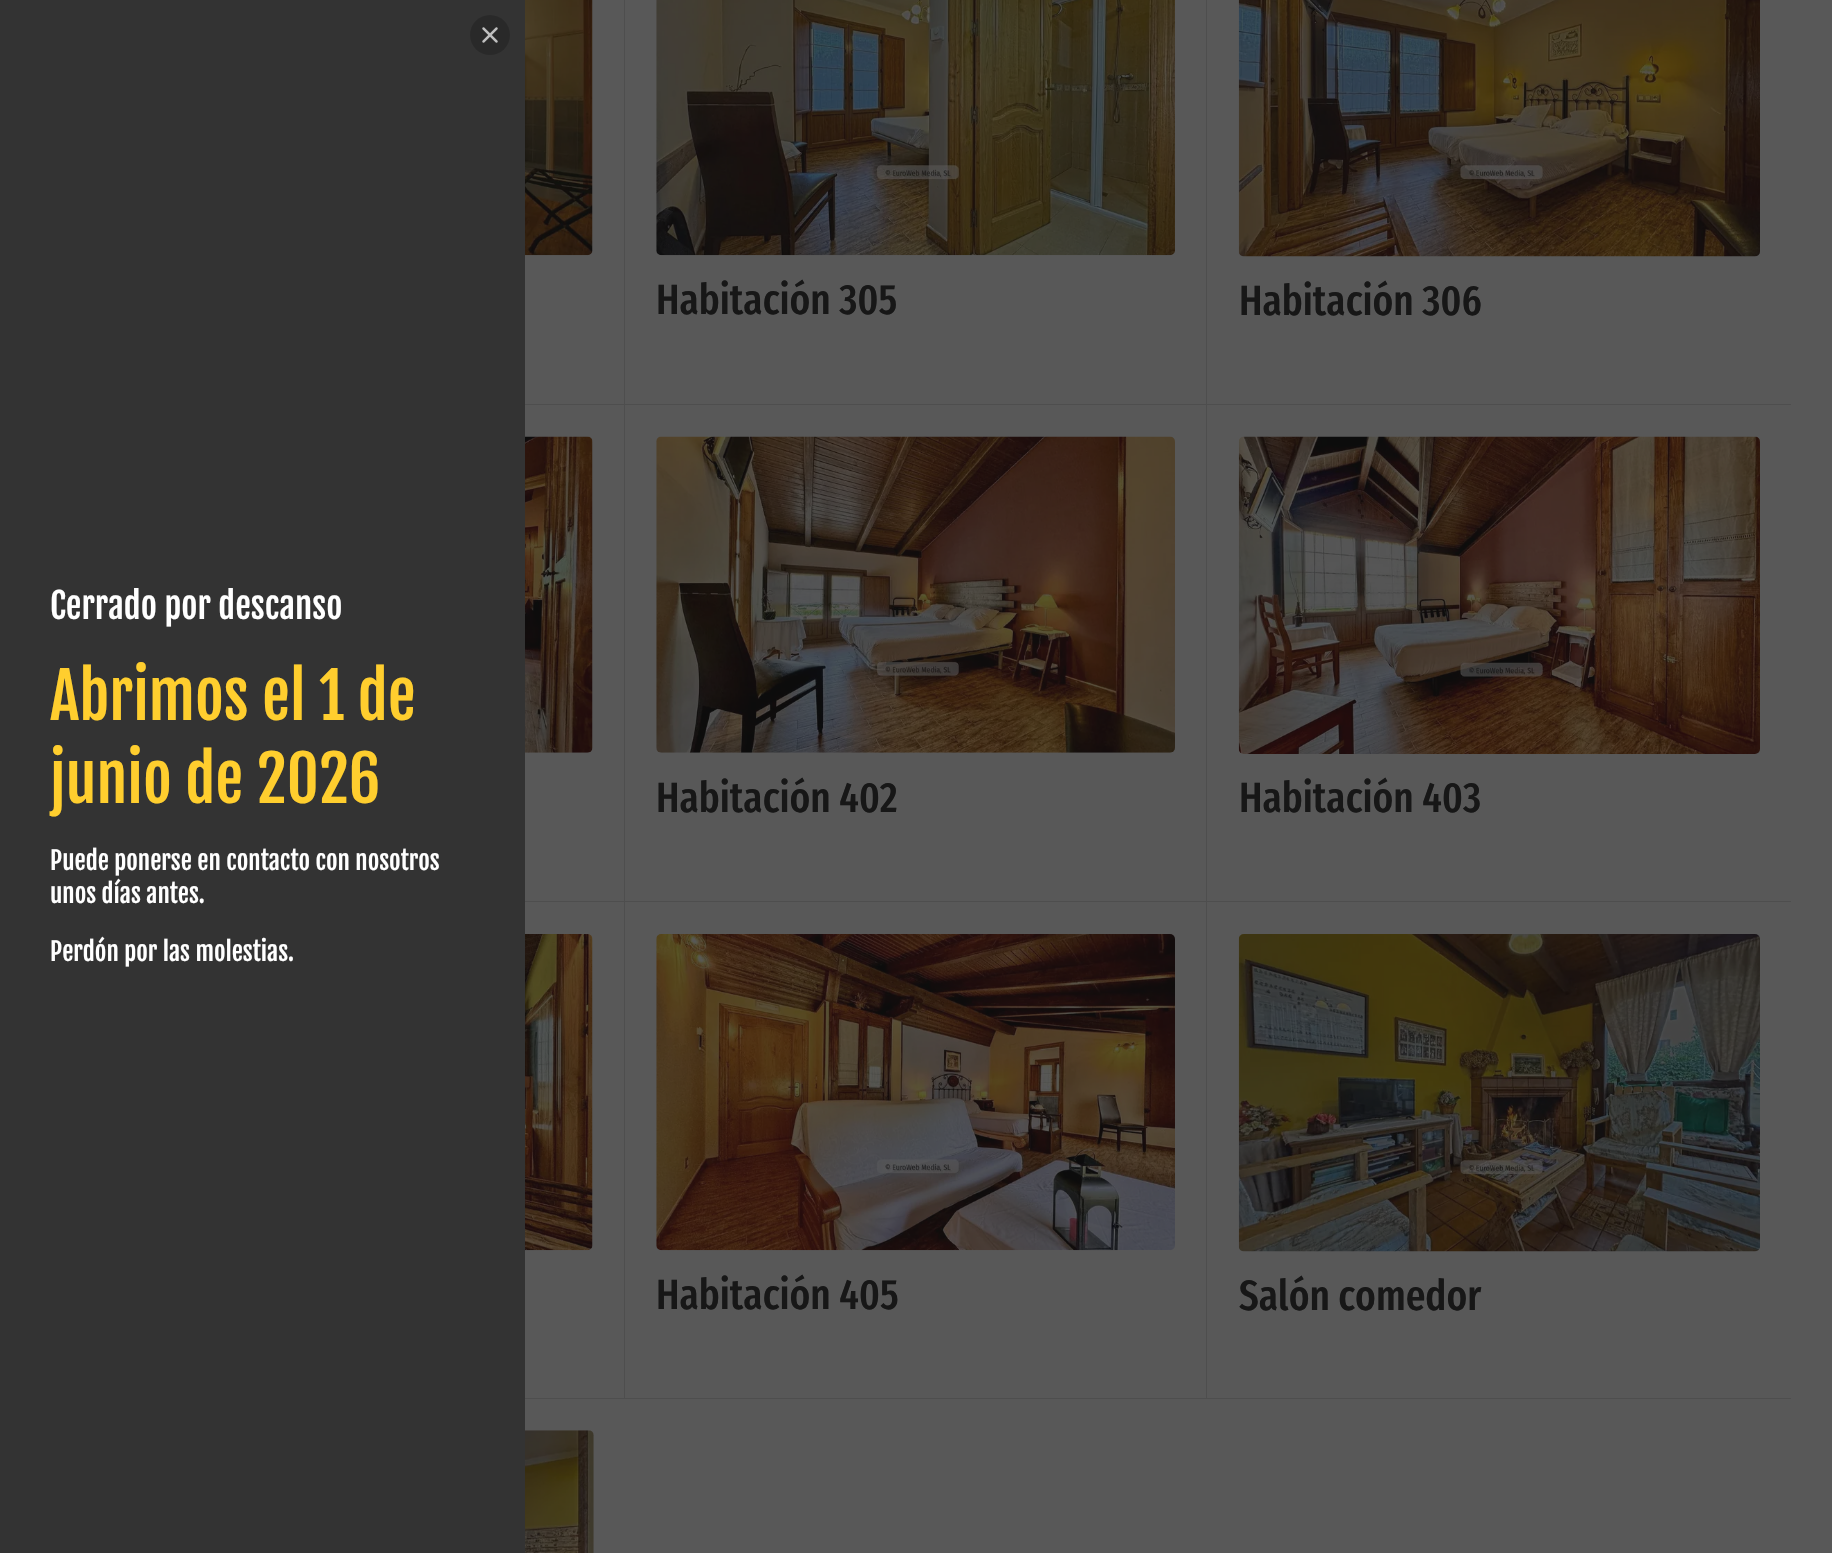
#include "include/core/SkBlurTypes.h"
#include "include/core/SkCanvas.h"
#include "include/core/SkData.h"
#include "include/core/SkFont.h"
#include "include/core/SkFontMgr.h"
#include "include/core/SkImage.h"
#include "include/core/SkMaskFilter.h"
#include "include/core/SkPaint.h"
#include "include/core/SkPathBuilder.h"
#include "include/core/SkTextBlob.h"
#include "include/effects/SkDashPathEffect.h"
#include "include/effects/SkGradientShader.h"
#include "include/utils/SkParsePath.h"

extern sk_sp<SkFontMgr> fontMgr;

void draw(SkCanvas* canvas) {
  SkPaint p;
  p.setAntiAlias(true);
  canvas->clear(SkColorSetRGB(88, 88, 88));
  p.setColor(SkColorSetRGB(51, 51, 51));
  canvas->drawRect(SkRect::MakeLTRB(0, 0, 525, 1553), p);
  p.setColor(SkColorSetRGB(41, 41, 41));
  canvas->drawCircle(490, 35, 20, p);
  canvas->drawImageRect(SkImages::DeferredFromEncodedData(SkData::MakeFromFileName("images/1.png")), SkRect::MakeLTRB(482, 27, 498, 43), SkSamplingOptions());
  p.setColor(SkColorSetRGB(78, 78, 78));
  canvas->drawRect(SkRect::MakeLTRB(624, 0, 625, 1399), p);
  canvas->drawRect(SkRect::MakeLTRB(525, 404, 625, 405), p);
  canvas->drawImageRect(SkImages::DeferredFromEncodedData(SkData::MakeFromFileName("images/2.png")), SkRect::MakeLTRB(525, 0, 593, 256), SkSamplingOptions());
  canvas->drawRect(SkRect::MakeLTRB(1206, 0, 1207, 1399), p);
  canvas->drawRect(SkRect::MakeLTRB(625, 404, 1791, 405), p);
  canvas->drawImageRect(SkImages::DeferredFromEncodedData(SkData::MakeFromFileName("images/3.png")), SkRect::MakeLTRB(656, 0, 1175, 256), SkSamplingOptions());
  canvas->drawImageRect(SkImages::DeferredFromEncodedData(SkData::MakeFromFileName("images/4.png")), SkRect::MakeLTRB(1238, 0, 1760, 257), SkSamplingOptions());
  canvas->drawRect(SkRect::MakeLTRB(525, 901, 1791, 902), p);
  canvas->drawImageRect(SkImages::DeferredFromEncodedData(SkData::MakeFromFileName("images/5.png")), SkRect::MakeLTRB(525, 436, 593, 753), SkSamplingOptions());
  canvas->drawImageRect(SkImages::DeferredFromEncodedData(SkData::MakeFromFileName("images/6.png")), SkRect::MakeLTRB(656, 436, 1175, 753), SkSamplingOptions());
  canvas->drawImageRect(SkImages::DeferredFromEncodedData(SkData::MakeFromFileName("images/7.png")), SkRect::MakeLTRB(1238, 436, 1760, 754), SkSamplingOptions());
  canvas->drawRect(SkRect::MakeLTRB(525, 1398, 1791, 1399), p);
  canvas->drawImageRect(SkImages::DeferredFromEncodedData(SkData::MakeFromFileName("images/8.png")), SkRect::MakeLTRB(525, 934, 593, 1251), SkSamplingOptions());
  canvas->drawImageRect(SkImages::DeferredFromEncodedData(SkData::MakeFromFileName("images/9.png")), SkRect::MakeLTRB(656, 934, 1175, 1251), SkSamplingOptions());
  canvas->drawImageRect(SkImages::DeferredFromEncodedData(SkData::MakeFromFileName("images/10.png")), SkRect::MakeLTRB(1238, 934, 1760, 1252), SkSamplingOptions());
  canvas->drawImageRect(SkImages::DeferredFromEncodedData(SkData::MakeFromFileName("images/11.png")), SkRect::MakeLTRB(525, 1430, 594, 1553), SkSamplingOptions());
  SkFont font1(fontMgr->matchFamilyStyle("Fjalla One", SkFontStyle::Normal()), 35);
  font1.setSubpixel(true);
  p.setColor(SK_ColorWHITE);
  canvas->drawString("Cerrado por descanso", 50, 619, font1, p);
  SkFont font2(fontMgr->matchFamilyStyle("Fjalla One", SkFontStyle::Normal()), 62.5f);
  font2.setSubpixel(true);
  p.setColor(SkColorSetRGB(255, 206, 46));
  canvas->drawString("Abrimos el 1 de", 50, 720, font2, p);
  canvas->drawString("junio de 2026", 50, 803, font2, p);
  SkFont font3(fontMgr->matchFamilyStyle("Fjalla One", SkFontStyle::Normal()), 25);
  font3.setSubpixel(true);
  p.setColor(SK_ColorWHITE);
  canvas->drawString("Puede ponerse en contacto con nosotros", 50, 870, font3, p);
  canvas->drawString("unos días antes.", 50, 903, font3, p);
  canvas->drawString("Perdón por las molestias.", 50, 961, font3, p);
  SkFont font4(fontMgr->matchFamilyStyle("Fira Sans Extra Condensed", SkFontStyle(500, SkFontStyle::kNormal_Width, SkFontStyle::kUpright_Slant)), 42.5f);
  font4.setSubpixel(true);
  p.setColor(SkColorSetRGB(23, 23, 23));
  canvas->drawString("Habitación 305", 656, 314, font4, p);
  canvas->drawString("Habitación 306", 1239, 315, font4, p);
  canvas->drawString("Habitación 402", 656, 812, font4, p);
  canvas->drawString("Habitación 403", 1239, 812, font4, p);
  canvas->drawString("Habitación 405", 656, 1309, font4, p);
  canvas->drawString("Salón comedor", 1239, 1310, font4, p);
}
